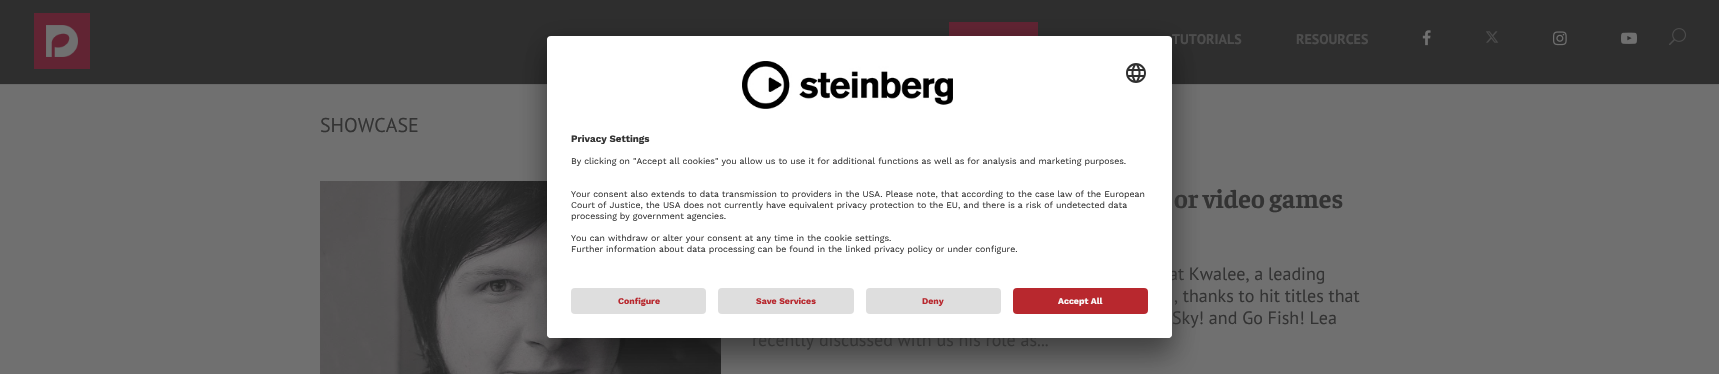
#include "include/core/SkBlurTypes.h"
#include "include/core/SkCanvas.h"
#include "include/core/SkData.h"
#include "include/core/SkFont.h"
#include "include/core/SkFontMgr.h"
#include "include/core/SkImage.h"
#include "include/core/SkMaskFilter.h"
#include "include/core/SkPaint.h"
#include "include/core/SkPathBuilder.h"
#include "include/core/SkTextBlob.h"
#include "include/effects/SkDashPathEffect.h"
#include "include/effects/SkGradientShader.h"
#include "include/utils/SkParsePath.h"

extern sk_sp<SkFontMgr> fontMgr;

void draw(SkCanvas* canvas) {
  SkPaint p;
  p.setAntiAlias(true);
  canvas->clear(SkColorSetRGB(112, 112, 112));
  p.setColor(SkColorSetRGB(105, 105, 105));
  canvas->drawRect(SkRect::MakeLTRB(0, 84, 1719, 85), p);
  p.setColor(SkColorSetRGB(46, 46, 46));
  canvas->drawRect(SkRect::MakeLTRB(0, 0, 1719, 84), p);
  canvas->drawImageRect(SkImages::DeferredFromEncodedData(SkData::MakeFromFileName("images/1.png")), SkRect::MakeLTRB(34, 13, 90, 69), SkSamplingOptions());
  p.setColor(SkColorSetRGB(97, 36, 51));
  canvas->drawRect(SkRect::MakeLTRB(949, 22, 1038, 36), p);
  canvas->drawImageRect(SkImages::DeferredFromEncodedData(SkData::MakeFromFileName("images/2.png")), SkRect::MakeLTRB(1422, 30, 1431, 46), SkSamplingOptions());
  canvas->drawImageRect(SkImages::DeferredFromEncodedData(SkData::MakeFromFileName("images/3.png")), SkRect::MakeLTRB(1486, 31, 1499, 43), SkSamplingOptions());
  canvas->drawImageRect(SkImages::DeferredFromEncodedData(SkData::MakeFromFileName("images/4.png")), SkRect::MakeLTRB(1553, 31, 1567, 46), SkSamplingOptions());
  canvas->drawImageRect(SkImages::DeferredFromEncodedData(SkData::MakeFromFileName("images/5.png")), SkRect::MakeLTRB(1621, 32, 1637, 44), SkSamplingOptions());
  canvas->drawImageRect(SkImages::DeferredFromEncodedData(SkData::MakeFromFileName("images/6.png")), SkRect::MakeLTRB(1669, 28, 1686, 45), SkSamplingOptions());
  canvas->drawImageRect(SkImages::DeferredFromEncodedData(SkData::MakeFromFileName("images/7.png")), SkRect::MakeLTRB(320, 181, 721, 374), SkSamplingOptions());
  p.setColor(SkColorSetARGB(77, 0, 0, 0));
  p.setMaskFilter(SkMaskFilter::MakeBlur(kNormal_SkBlurStyle, 14));
  canvas->drawRoundRect(SkRect::MakeLTRB(547, 56, 1172, 358), 4, 4, p);
  p.setMaskFilter(nullptr);
  p.setColor(SkColorSetARGB(56, 0, 0, 0));
  p.setMaskFilter(SkMaskFilter::MakeBlur(kNormal_SkBlurStyle, 13));
  canvas->drawRoundRect(SkRect::MakeLTRB(547, 41, 1172, 343), 4, 4, p);
  p.setMaskFilter(nullptr);
  SkFont font1(fontMgr->matchFamilyStyle("PT Sans", SkFontStyle::Bold()), 14);
  font1.setSubpixel(true);
  p.setColor(SkColorSetRGB(77, 77, 77));
  canvas->drawString("TUTORIALS", 1172, 44, font1, p);
  canvas->drawString("RESOURCES", 1296, 44, font1, p);
  SkFont font2(fontMgr->matchFamilyStyle("PT Sans", SkFontStyle::Normal()), 20);
  font2.setSubpixel(true);
  p.setColor(SkColorSetRGB(51, 51, 51));
  canvas->drawString("SHOWCASE", 320, 132, font2, p);
  SkFont font3(fontMgr->matchFamilyStyle("Faustina", SkFontStyle(300, SkFontStyle::kNormal_Width, SkFontStyle::kUpright_Slant)), 26);
  font3.setSubpixel(true);
  canvas->drawString("or video games", 1174, 208, font3, p);
  SkFont font4(fontMgr->matchFamilyStyle("PT Sans", SkFontStyle::Normal()), 18);
  font4.setSubpixel(true);
  canvas->drawString("at Kwalee, a leading", 1169, 280, font4, p);
  canvas->drawString(", thanks to hit titles that", 1174, 302, font4, p);
  canvas->drawString("Sky! and Go Fish! Lea", 1172, 324, font4, p);
  canvas->drawString("recently discussed with us his role as...", 752, 346, font4, p);
  p.setColor(SK_ColorWHITE);
  canvas->drawRoundRect(SkRect::MakeLTRB(547, 36, 1172, 338), 4, 4, p);
  canvas->save();
  canvas->clipPath(SkPathBuilder().moveTo(551, 36).lineTo(1168, 36).cubicTo(1170, 36, 1172, 38, 1172, 40).lineTo(1172, 334).cubicTo(1172, 336, 1170, 338, 1168, 338).lineTo(551, 338).cubicTo(549, 338, 547, 336, 547, 334).lineTo(547, 40).cubicTo(547, 38, 549, 36, 551, 36).close().detach(), true);
  canvas->clipPath(SkPathBuilder().moveTo(551, 36).lineTo(1168, 36).cubicTo(1170, 36, 1172, 38, 1172, 40).lineTo(1172, 280).lineTo(547, 280).lineTo(547, 40).cubicTo(547, 38, 549, 36, 551, 36).close().detach(), true);
  canvas->drawRect(SkRect::MakeLTRB(547, 37, 1172, 280), p);
  canvas->restore();
  canvas->drawImageRect(SkImages::DeferredFromEncodedData(SkData::MakeFromFileName("images/8.png")), SkRect::MakeLTRB(742, 61, 953, 109), SkSamplingOptions());
  canvas->drawImageRect(SkImages::DeferredFromEncodedData(SkData::MakeFromFileName("images/9.png")), SkRect::MakeLTRB(1126, 63, 1146, 83), SkSamplingOptions());
  SkFont font5(fontMgr->matchFamilyStyle("Work Sans", SkFontStyle::Bold()), 9.75f);
  font5.setSubpixel(true);
  p.setColor(SkColorSetRGB(51, 51, 51));
  canvas->drawString("Privacy Settings", 571, 142, font5, p);
  SkFont font6(fontMgr->matchFamilyStyle("Work Sans", SkFontStyle::Normal()), 8.75f);
  font6.setSubpixel(true);
  canvas->drawString("By clicking on \"Accept all cookies\" you allow us to use it for additional functions as well as for analysis and marketing purposes.", 571, 164, font6, p);
  canvas->drawString("Your consent also extends to data transmission to providers in the USA. Please note, that according to the case law of the European", 571, 197, font6, p);
  canvas->drawString("Court of Justice, the USA does not currently have equivalent privacy protection to the EU, and there is a risk of undetected data", 571, 208, font6, p);
  canvas->drawString("processing by government agencies.", 571, 219, font6, p);
  canvas->drawString("You can withdraw or alter your consent at any time in the cookie settings.", 571, 241, font6, p);
  canvas->drawString("Further information about data processing can be found in the linked privacy policy or under configure.", 571, 252, font6, p);
  p.setColor(SK_ColorWHITE);
  canvas->drawPath(SkPathBuilder().moveTo(547, 280).lineTo(1172, 280).lineTo(1172, 334).cubicTo(1172, 336, 1170, 338, 1168, 338).lineTo(551, 338).cubicTo(549, 338, 547, 336, 547, 334).close().detach(), p);
  p.setColor(SkColorSetRGB(222, 222, 222));
  canvas->drawRoundRect(SkRect::MakeLTRB(571, 288, 706, 314), 4, 4, p);
  SkFont font7(fontMgr->matchFamilyStyle("Work Sans", SkFontStyle::Bold()), 8.75f);
  font7.setSubpixel(true);
  p.setColor(SkColorSetRGB(184, 40, 46));
  canvas->drawString("Configure", 618, 304, font7, p);
  p.setColor(SkColorSetRGB(222, 222, 222));
  canvas->drawRoundRect(SkRect::MakeLTRB(718, 288, 854, 314), 4, 4, p);
  p.setColor(SkColorSetRGB(184, 40, 46));
  canvas->drawString("Save Services", 756, 304, font7, p);
  p.setColor(SkColorSetRGB(222, 222, 222));
  canvas->drawRoundRect(SkRect::MakeLTRB(866, 288, 1001, 314), 4, 4, p);
  p.setColor(SkColorSetRGB(184, 40, 46));
  canvas->drawString("Deny", 922, 304, font7, p);
  canvas->drawRoundRect(SkRect::MakeLTRB(1013, 288, 1148, 314), 4, 4, p);
  p.setColor(SkColorSetRGB(250, 250, 250));
  canvas->drawString("Accept All", 1058, 304, font7, p);
}
